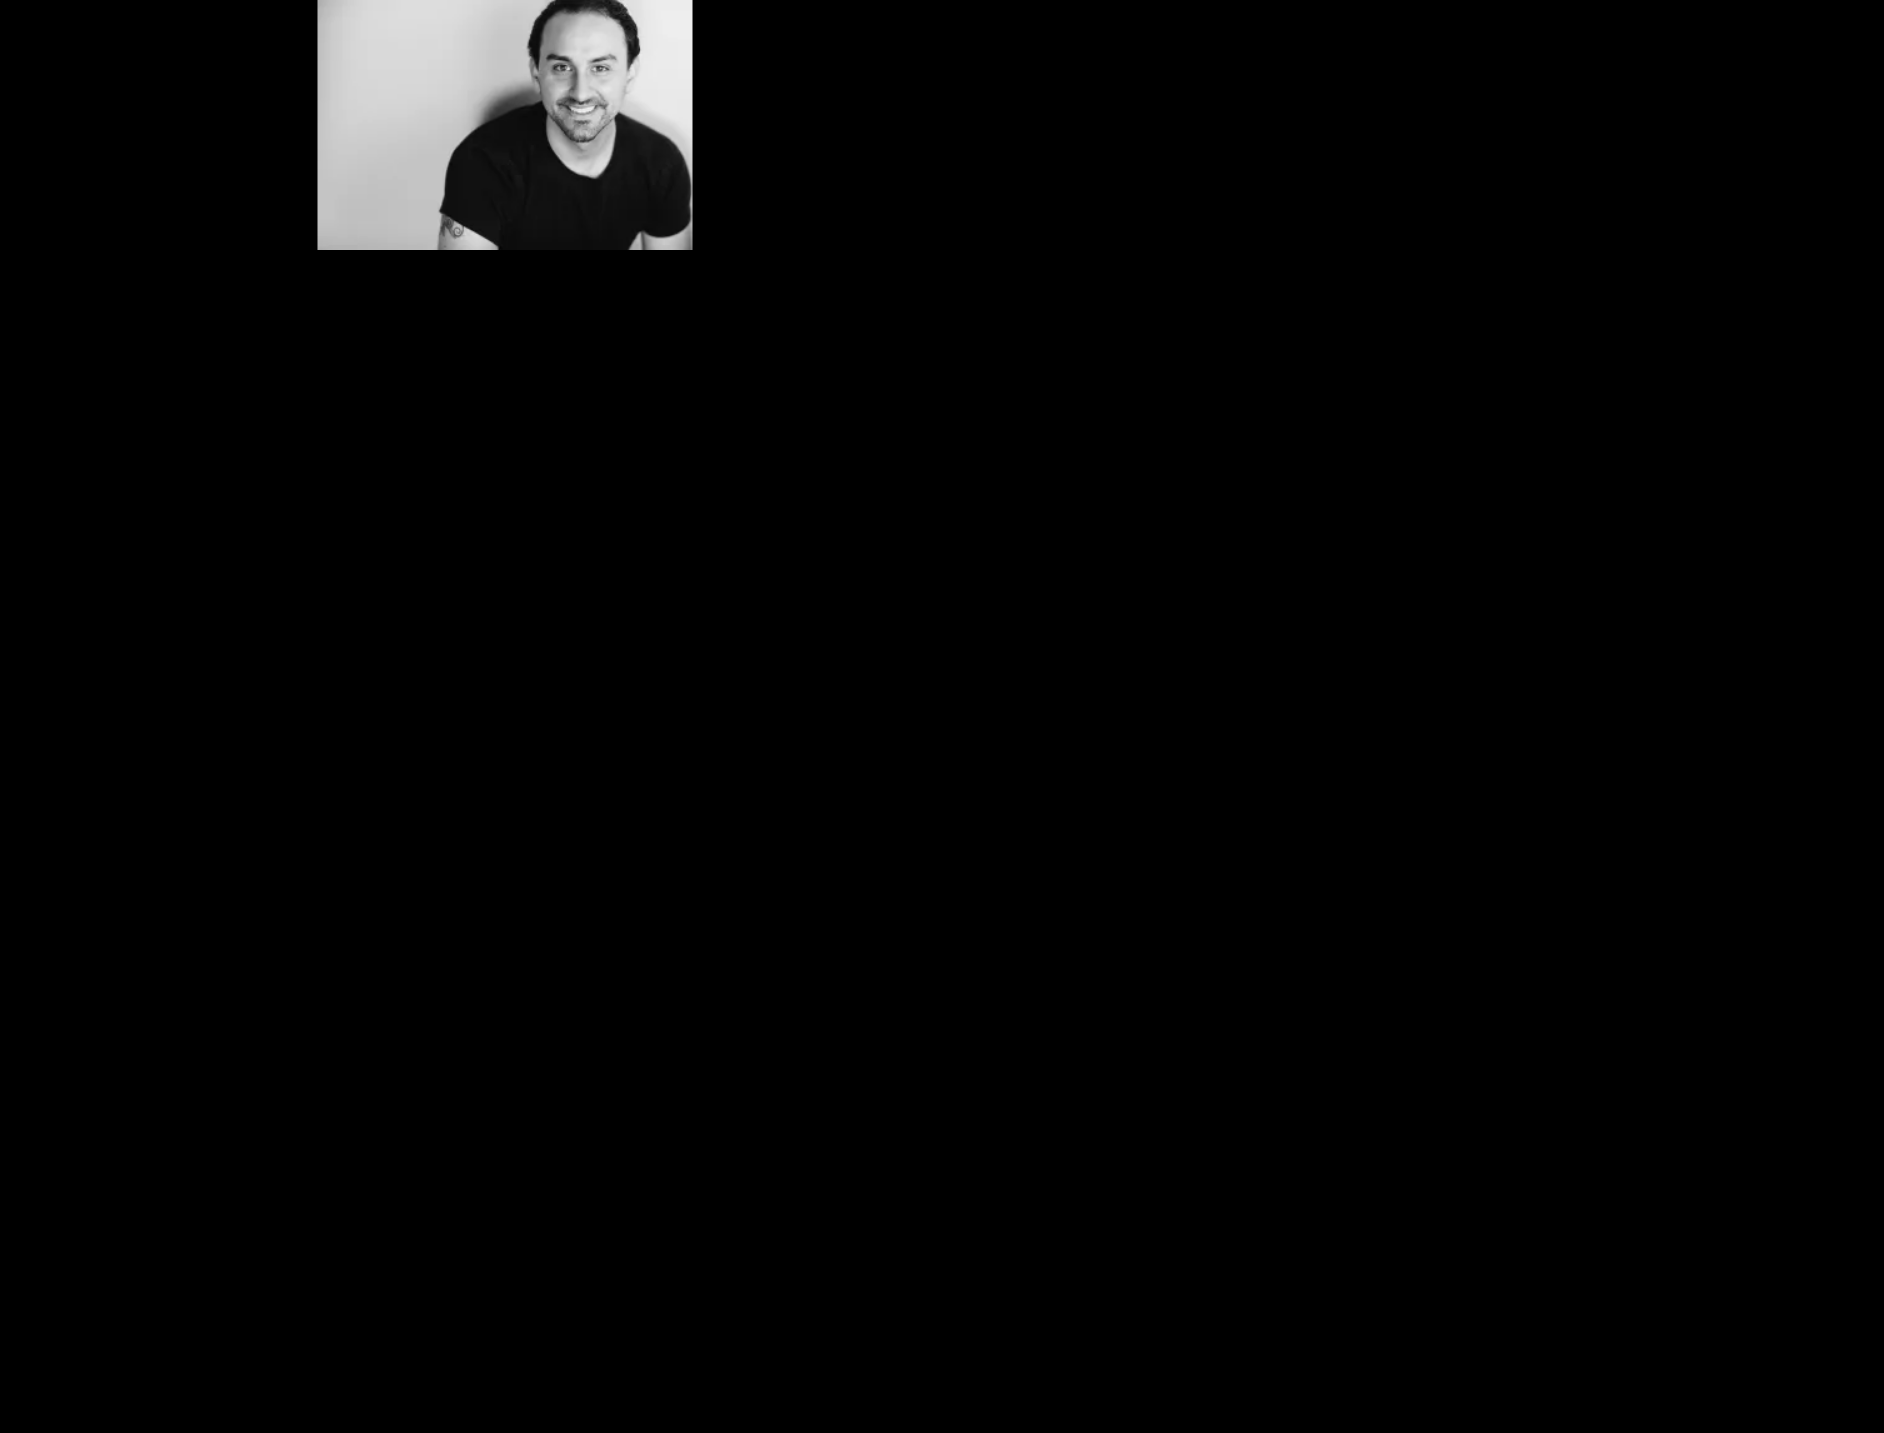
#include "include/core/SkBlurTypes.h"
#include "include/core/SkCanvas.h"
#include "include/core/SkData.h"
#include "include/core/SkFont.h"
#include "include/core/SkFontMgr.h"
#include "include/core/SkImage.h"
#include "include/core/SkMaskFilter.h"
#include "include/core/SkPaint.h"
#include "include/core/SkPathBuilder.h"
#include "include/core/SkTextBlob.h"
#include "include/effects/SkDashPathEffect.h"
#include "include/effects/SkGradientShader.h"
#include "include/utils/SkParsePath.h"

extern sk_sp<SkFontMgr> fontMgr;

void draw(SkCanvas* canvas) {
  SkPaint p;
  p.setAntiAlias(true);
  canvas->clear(SK_ColorBLACK);
  canvas->drawImageRect(SkImages::DeferredFromEncodedData(SkData::MakeFromFileName("images/1.png")), SkRect::MakeLTRB(317, 0, 693, 250), SkSamplingOptions());
}
